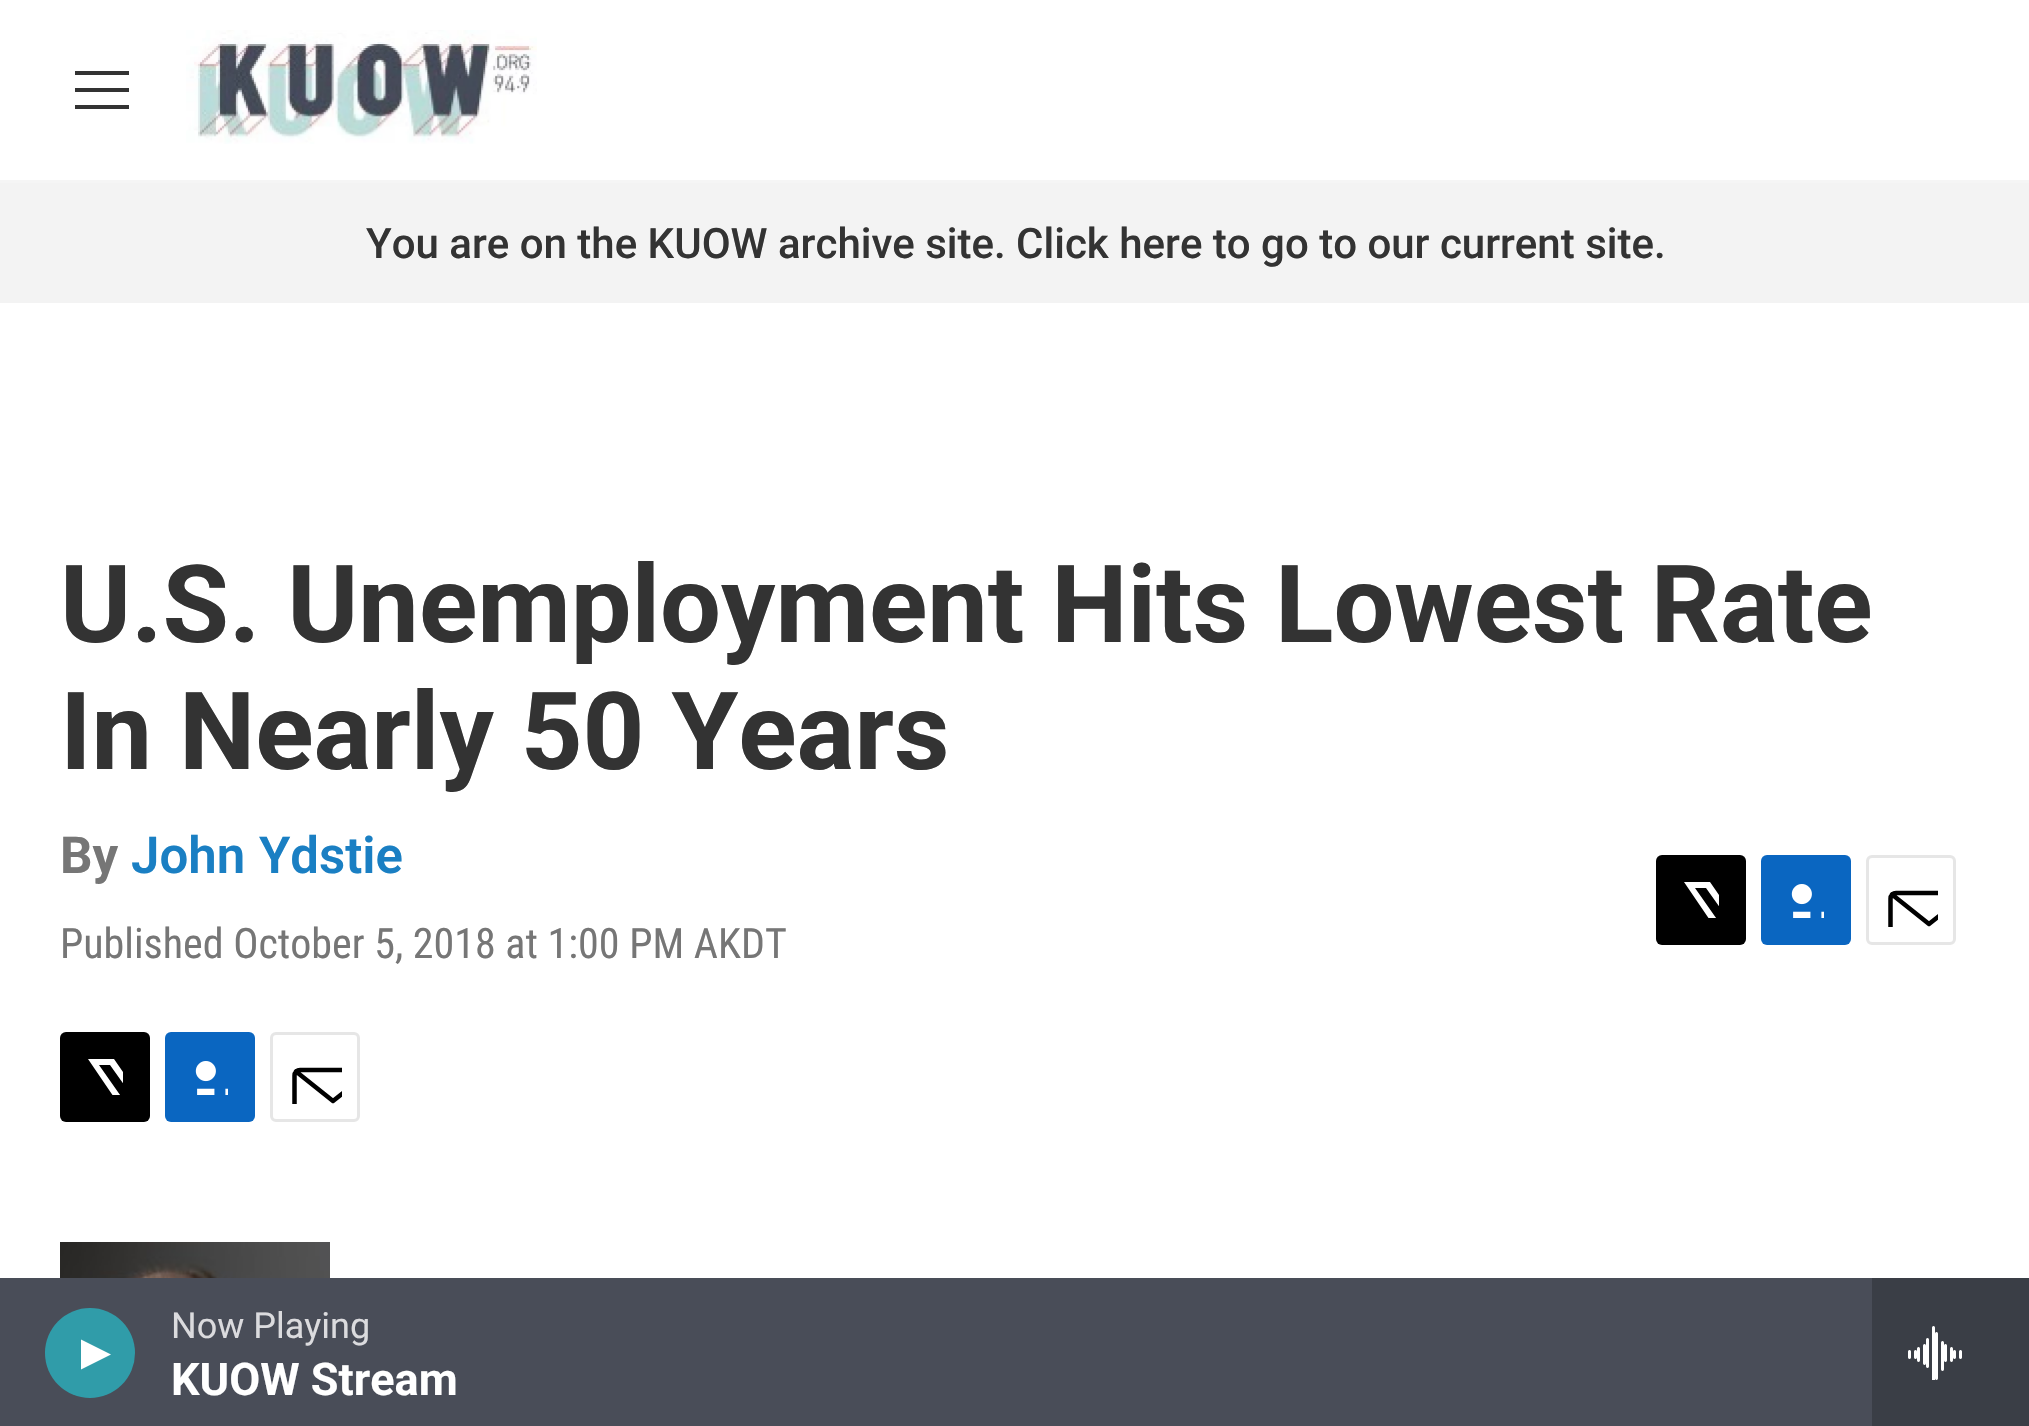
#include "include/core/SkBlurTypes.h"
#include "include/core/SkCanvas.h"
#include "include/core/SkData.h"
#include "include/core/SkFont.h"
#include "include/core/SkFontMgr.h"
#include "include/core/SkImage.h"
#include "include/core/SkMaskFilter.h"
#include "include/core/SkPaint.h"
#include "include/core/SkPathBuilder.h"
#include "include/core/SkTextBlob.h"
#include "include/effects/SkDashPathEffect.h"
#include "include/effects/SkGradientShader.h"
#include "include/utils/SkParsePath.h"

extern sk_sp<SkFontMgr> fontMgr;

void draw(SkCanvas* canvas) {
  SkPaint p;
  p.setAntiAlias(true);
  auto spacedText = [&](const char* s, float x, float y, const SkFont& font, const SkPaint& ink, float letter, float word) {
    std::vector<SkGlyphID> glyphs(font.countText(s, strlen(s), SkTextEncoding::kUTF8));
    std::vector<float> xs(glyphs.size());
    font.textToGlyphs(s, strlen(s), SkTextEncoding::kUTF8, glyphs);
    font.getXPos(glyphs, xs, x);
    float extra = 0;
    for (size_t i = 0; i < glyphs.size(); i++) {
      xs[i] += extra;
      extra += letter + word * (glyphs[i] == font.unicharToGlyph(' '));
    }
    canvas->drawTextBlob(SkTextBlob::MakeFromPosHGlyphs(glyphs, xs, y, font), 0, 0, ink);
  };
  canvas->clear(SK_ColorWHITE);
  p.setColor(SkColorSetRGB(243, 243, 243));
  canvas->drawRect(SkRect::MakeLTRB(0, 183, 2029, 303), p);
  p.setColor(SK_ColorBLACK);
  canvas->drawRoundRect(SkRect::MakeLTRB(1656, 855, 1746, 945), 6, 6, p);
  canvas->save();
  canvas->clipRect(SkRect::MakeLTRB(1683, 882, 1719, 918));
  p.setColor(SK_ColorWHITE);
  canvas->drawPath(SkPathBuilder().moveTo(1736, 920).lineTo(1746, 934).cubicTo(1746, 937, 1747, 940, 1745, 943).lineTo(1706, 888).lineTo(1695, 888).lineTo(1735, 945).lineTo(1727, 945).lineTo(1722, 937).lineTo(1715, 945).lineTo(1707, 945).lineTo(1718, 932).lineTo(1684, 882).lineTo(1710, 882).lineTo(1733, 915).lineTo(1746, 900).lineTo(1746, 908).close().detach(), p);
  canvas->restore();
  p.setColor(SkColorSetRGB(10, 102, 193));
  canvas->drawRoundRect(SkRect::MakeLTRB(1761, 855, 1851, 945), 6, 6, p);
  canvas->drawImageRect(SkImages::DeferredFromEncodedData(SkData::MakeFromFileName("images/1.png")), SkRect::MakeLTRB(1791, 884, 1824, 918), SkSamplingOptions());
  p.setStyle(SkPaint::kStroke_Style);
  p.setStrokeWidth(3);
  p.setColor(SkColorSetRGB(230, 230, 230));
  canvas->drawRoundRect(SkRect::MakeLTRB(1867.5f, 856.5f, 1954.5f, 943.5f), 4.5f, 4.5f, p);
  canvas->save();
  canvas->clipRect(SkRect::MakeLTRB(1884, 873, 1938, 927));
  p.setStrokeWidth(4.5f);
  p.setStrokeCap(SkPaint::kRound_Cap);
  p.setStrokeJoin(SkPaint::kRound_Join);
  p.setColor(SK_ColorBLACK);
  canvas->drawPath(SkPathBuilder().moveTo(1967.5f, 939).cubicTo(1967.5f, 942, 1965, 944.5f, 1962, 944.5f).lineTo(1896, 944.5f).cubicTo(1893, 944.5f, 1890.5f, 942, 1890.5f, 939).lineTo(1890.5f, 898.5f).cubicTo(1890.5f, 895.5f, 1893, 893, 1896, 893).lineTo(1962, 893).cubicTo(1965, 893, 1967.5f, 895.5f, 1967.5f, 898.5f).close().moveTo(1966, 894.5f).lineTo(1929, 924).lineTo(1892, 894.5f).detach(), p);
  canvas->restore();
  p.setStyle(SkPaint::kFill_Style);
  canvas->drawRoundRect(SkRect::MakeLTRB(60, 1032, 150, 1122), 6, 6, p);
  canvas->save();
  canvas->clipRect(SkRect::MakeLTRB(87, 1059, 123, 1095));
  p.setColor(SK_ColorWHITE);
  canvas->drawPath(SkPathBuilder().moveTo(140, 1097).lineTo(150, 1111).cubicTo(150, 1114, 151, 1117, 149, 1120).lineTo(110, 1065).lineTo(99, 1065).lineTo(139, 1122).lineTo(131, 1122).lineTo(126, 1114).lineTo(119, 1122).lineTo(111, 1122).lineTo(122, 1109).lineTo(88, 1059).lineTo(114, 1059).lineTo(137, 1092).lineTo(150, 1077).lineTo(150, 1085).close().detach(), p);
  canvas->restore();
  p.setColor(SkColorSetRGB(10, 102, 193));
  canvas->drawRoundRect(SkRect::MakeLTRB(165, 1032, 255, 1122), 6, 6, p);
  canvas->drawImageRect(SkImages::DeferredFromEncodedData(SkData::MakeFromFileName("images/1.png")), SkRect::MakeLTRB(195, 1061, 228, 1095), SkSamplingOptions());
  p.setStyle(SkPaint::kStroke_Style);
  p.setStrokeWidth(3);
  p.setStrokeCap(SkPaint::kButt_Cap);
  p.setStrokeJoin(SkPaint::kMiter_Join);
  p.setColor(SkColorSetRGB(230, 230, 230));
  canvas->drawRoundRect(SkRect::MakeLTRB(271.5f, 1033.5f, 358.5f, 1120.5f), 4.5f, 4.5f, p);
  canvas->save();
  canvas->clipRect(SkRect::MakeLTRB(288, 1050, 342, 1104));
  p.setStrokeWidth(4.5f);
  p.setStrokeCap(SkPaint::kRound_Cap);
  p.setStrokeJoin(SkPaint::kRound_Join);
  p.setColor(SK_ColorBLACK);
  canvas->drawPath(SkPathBuilder().moveTo(371.5f, 1116).cubicTo(371.5f, 1119, 369, 1121.5f, 366, 1121.5f).lineTo(300, 1121.5f).cubicTo(297, 1121.5f, 294.5f, 1119, 294.5f, 1116).lineTo(294.5f, 1075.5f).cubicTo(294.5f, 1072.5f, 297, 1070, 300, 1070).lineTo(366, 1070).cubicTo(369, 1070, 371.5f, 1072.5f, 371.5f, 1075.5f).close().moveTo(370, 1071.5f).lineTo(333, 1101).lineTo(296, 1071.5f).detach(), p);
  canvas->restore();
  canvas->drawImageRect(SkImages::DeferredFromEncodedData(SkData::MakeFromFileName("images/2.png")), SkRect::MakeLTRB(60, 1242, 330, 1278), SkSamplingOptions());
  p.setStyle(SkPaint::kFill_Style);
  p.setColor(SkColorSetRGB(245, 245, 245));
  canvas->drawRect(SkRect::MakeLTRB(0, 180, 2029, 183), p);
  p.setColor(SkColorSetRGB(51, 51, 51));
  canvas->drawPath(SkPathBuilder(SkPathFillType::kEvenOdd).moveTo(75, 92).lineTo(75, 88).lineTo(129, 88).lineTo(129, 92).close().moveTo(75, 75).lineTo(75, 71).lineTo(129, 71).lineTo(129, 75).close().moveTo(75, 109).lineTo(75, 105).lineTo(129, 105).lineTo(129, 109).close().detach(), p);
  canvas->drawImageRect(SkImages::DeferredFromEncodedData(SkData::MakeFromFileName("images/3.png")), SkRect::MakeLTRB(186, 30, 537, 144), SkSamplingOptions());
  p.setColor(SkColorSetRGB(73, 77, 88));
  canvas->drawRect(SkRect::MakeLTRB(0, 1278, 1872, 1426), p);
  p.setColor(SkColorSetRGB(48, 156, 169));
  canvas->drawCircle(90, 1353, 45, p);
  p.setColor(SK_ColorWHITE);
  canvas->drawPath(SkPathBuilder().moveTo(81, 1339.5f).lineTo(111, 1354.5f).lineTo(81, 1369.5f).close().detach(), p);
  p.setColor(SkColorSetRGB(58, 62, 70));
  canvas->drawRect(SkRect::MakeLTRB(1872, 1278, 2029, 1426), p);
  canvas->drawImageRect(SkImages::DeferredFromEncodedData(SkData::MakeFromFileName("images/4.png")), SkRect::MakeLTRB(1908, 1326, 1962, 1380), SkSamplingOptions());
  SkFont font1(fontMgr->matchFamilyStyle("Roboto", SkFontStyle(500, SkFontStyle::kNormal_Width, SkFontStyle::kUpright_Slant)), 42);
  font1.setSubpixel(true);
  p.setColor(SkColorSetRGB(51, 51, 51));
  canvas->drawString("You are on the KUOW archive site. Click here to go to our current site.", 366, 258, font1, p);
  SkFont font2(fontMgr->matchFamilyStyle("Roboto", SkFontStyle::Bold()), 108);
  font2.setSubpixel(true);
  canvas->drawString("U.S. Unemployment Hits Lowest Rate", 60, 642, font2, p);
  canvas->drawString("In Nearly 50 Years", 60, 769, font2, p);
  SkFont font3(fontMgr->matchFamilyStyle("Roboto", SkFontStyle::Bold()), 51);
  font3.setSubpixel(true);
  p.setColor(SkColorSetRGB(118, 118, 118));
  canvas->drawString("By", 60, 873, font3, p);
  SkFont font4(fontMgr->matchFamilyStyle("Roboto", SkFontStyle(600, SkFontStyle::kNormal_Width, SkFontStyle::kUpright_Slant)), 51);
  font4.setSubpixel(true);
  p.setColor(SkColorSetRGB(26, 127, 195));
  spacedText("John Ydstie", 131, 873, font4, p, 0, 1);
  SkFont font5(fontMgr->matchFamilyStyle("Roboto Condensed", SkFontStyle::Normal()), 42);
  font5.setSubpixel(true);
  p.setColor(SkColorSetRGB(118, 118, 118));
  canvas->drawString("Published October 5, 2018 at 1:00 PM AKDT", 60, 958, font5, p);
  SkFont font6(fontMgr->matchFamilyStyle("Roboto", SkFontStyle::Normal()), 36);
  font6.setSubpixel(true);
  p.setColor(SkColorSetRGB(219, 219, 222));
  canvas->drawString("Now Playing", 171, 1338, font6, p);
  SkFont font7(fontMgr->matchFamilyStyle("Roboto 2", SkFontStyle::Bold()), 45);
  font7.setSubpixel(true);
  p.setColor(SK_ColorWHITE);
  canvas->drawString("KUOW Stream", 171, 1395, font7, p);
}
